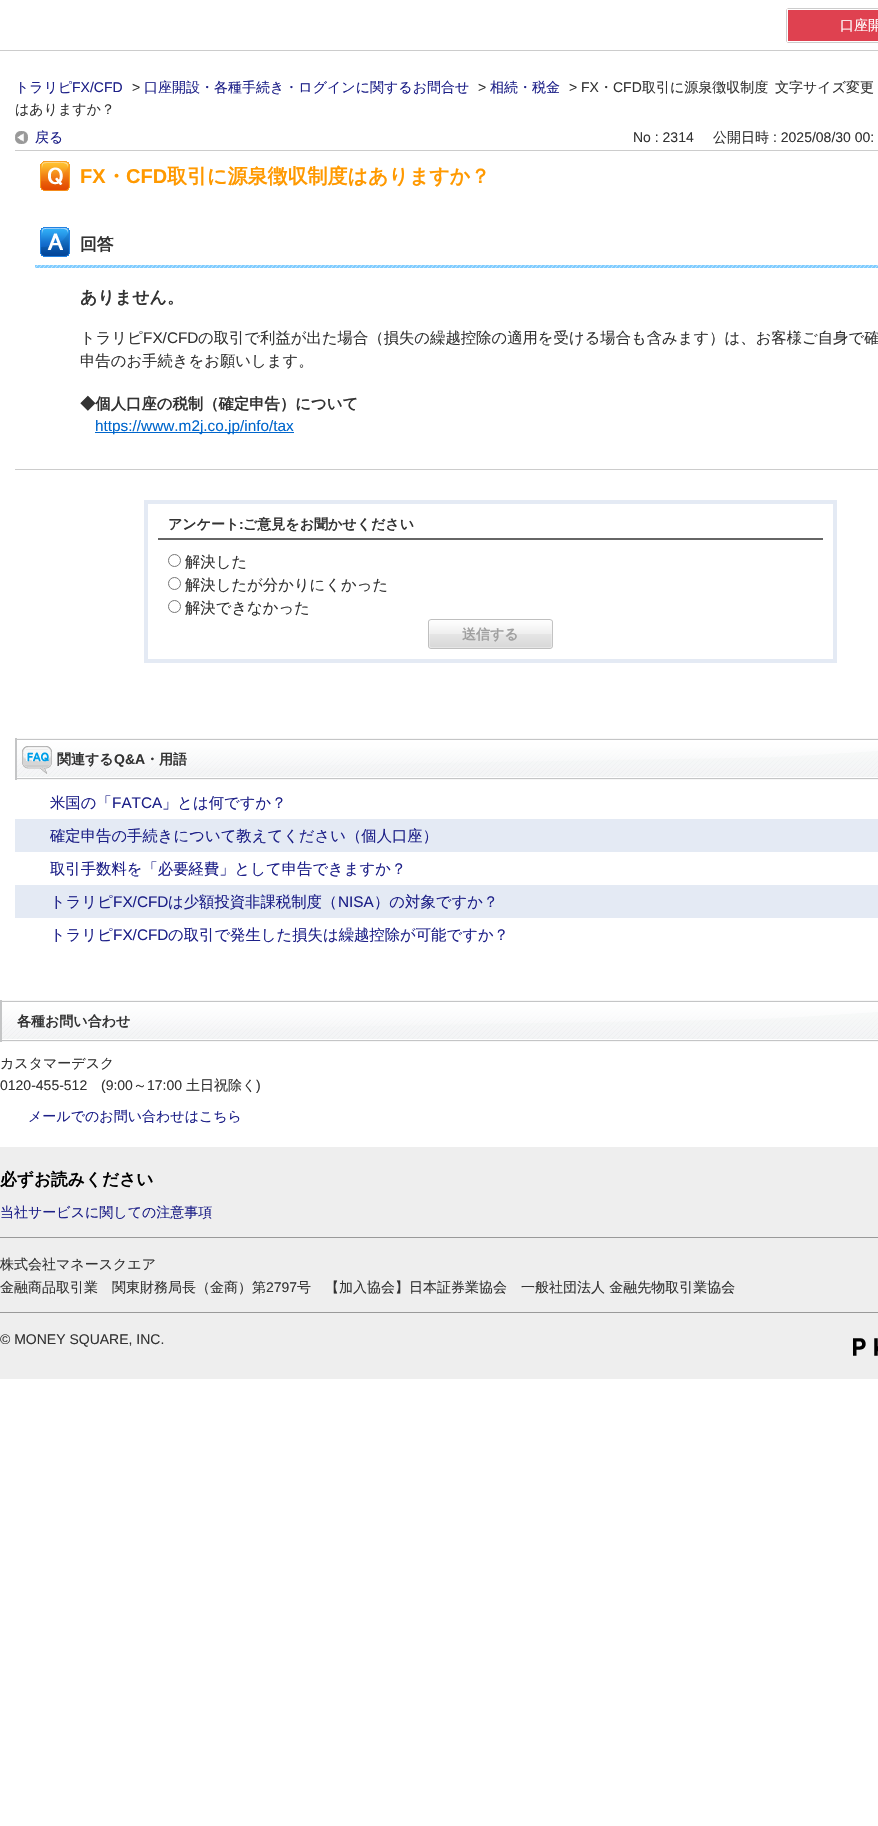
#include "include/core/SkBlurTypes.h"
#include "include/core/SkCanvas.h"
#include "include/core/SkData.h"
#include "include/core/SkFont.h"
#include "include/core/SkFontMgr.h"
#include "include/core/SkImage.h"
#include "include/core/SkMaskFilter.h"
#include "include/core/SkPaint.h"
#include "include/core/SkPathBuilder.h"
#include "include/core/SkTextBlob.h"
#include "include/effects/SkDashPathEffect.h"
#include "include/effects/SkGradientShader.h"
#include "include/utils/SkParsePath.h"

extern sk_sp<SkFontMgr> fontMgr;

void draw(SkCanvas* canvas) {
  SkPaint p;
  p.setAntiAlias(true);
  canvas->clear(SK_ColorWHITE);
  p.setColor(SkColorSetRGB(204, 204, 204));
  canvas->drawRect(SkRect::MakeLTRB(0, 50, 878, 51), p);
  p.setColor(SkColorSetRGB(223, 65, 80));
  canvas->drawRoundRect(SkRect::MakeLTRB(786.5f, 8.5f, 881.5f, 42.5f), 2.5f, 2.5f, p);
  p.setStyle(SkPaint::kStroke_Style);
  p.setStrokeWidth(1);
  p.setColor(SkColorSetRGB(204, 204, 204));
  canvas->drawRoundRect(SkRect::MakeLTRB(786.5f, 8.5f, 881.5f, 42.5f), 2.5f, 2.5f, p);
  p.setColor(SK_ColorWHITE);
  canvas->drawRect(SkRect::MakeLTRB(787.5f, 9.5f, 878.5f, 41.5f), p);
  p.setStyle(SkPaint::kFill_Style);
  p.setColor(SkColorSetRGB(204, 204, 204));
  canvas->drawRect(SkRect::MakeLTRB(15, 150, 878, 151), p);
  canvas->drawImageRect(SkImages::DeferredFromEncodedData(SkData::MakeFromFileName("images/1.png")), SkRect::MakeLTRB(15, 131, 28, 144), SkSamplingOptions());
  canvas->drawImageRect(SkImages::DeferredFromEncodedData(SkData::MakeFromFileName("images/2.png")), SkRect::MakeLTRB(40, 161, 70, 191), SkSamplingOptions());
  canvas->drawImageRect(SkImages::DeferredFromEncodedData(SkData::MakeFromFileName("images/3.png")), SkRect::MakeLTRB(35, 265, 878, 268), SkSamplingOptions());
  canvas->drawImageRect(SkImages::DeferredFromEncodedData(SkData::MakeFromFileName("images/4.png")), SkRect::MakeLTRB(40, 227, 70, 257), SkSamplingOptions());
  canvas->drawRect(SkRect::MakeLTRB(15, 469, 878, 470), p);
  p.setColor(SkColorSetRGB(0, 102, 204));
  canvas->drawRect(SkRect::MakeLTRB(95, 432, 294, 433), p);
  p.setStyle(SkPaint::kStroke_Style);
  p.setStrokeWidth(4);
  p.setColor(SkColorSetRGB(228, 234, 244));
  canvas->drawRect(SkRect::MakeLTRB(146, 502, 835, 661), p);
  p.setStyle(SkPaint::kFill_Style);
  p.setColor(SkColorSetRGB(102, 102, 102));
  canvas->drawRect(SkRect::MakeLTRB(158, 538, 823, 540), p);
  p.setStyle(SkPaint::kStroke_Style);
  p.setStrokeWidth(1);
  p.setColor(SkColorSetRGB(118, 118, 118));
  canvas->drawCircle(174.5f, 560.5f, 6, p);
  canvas->drawCircle(174.5f, 583.5f, 6, p);
  canvas->drawCircle(174.5f, 606.5f, 6, p);
  canvas->drawImageRect(SkImages::DeferredFromEncodedData(SkData::MakeFromFileName("images/5.png")), SkRect::MakeLTRB(428, 619, 553, 649), SkSamplingOptions());
  p.setStyle(SkPaint::kFill_Style);
  p.setColor(SkColorSetRGB(196, 197, 198));
  canvas->drawRect(SkRect::MakeLTRB(15, 738, 17, 780), p);
  canvas->drawImageRect(SkImages::DeferredFromEncodedData(SkData::MakeFromFileName("images/6.png")), SkRect::MakeLTRB(17, 738, 878, 780), SkSamplingOptions());
  canvas->drawImageRect(SkImages::DeferredFromEncodedData(SkData::MakeFromFileName("images/7.png")), SkRect::MakeLTRB(22, 746, 52, 774), SkSamplingOptions());
  p.setColor(SkColorSetRGB(228, 234, 244));
  canvas->drawRect(SkRect::MakeLTRB(15, 819, 878, 852), p);
  canvas->drawRect(SkRect::MakeLTRB(15, 885, 878, 918), p);
  p.setColor(SkColorSetRGB(196, 197, 198));
  canvas->drawRect(SkRect::MakeLTRB(0, 1000, 2, 1042), p);
  canvas->drawImageRect(SkImages::DeferredFromEncodedData(SkData::MakeFromFileName("images/8.png")), SkRect::MakeLTRB(2, 1000, 878, 1042), SkSamplingOptions());
  p.setColor(SkColorSetRGB(238, 238, 238));
  canvas->drawRect(SkRect::MakeLTRB(0, 1147, 878, 1379), p);
  p.setColor(SkColorSetRGB(153, 153, 153));
  canvas->drawRect(SkRect::MakeLTRB(0, 1237, 878, 1238), p);
  canvas->drawRect(SkRect::MakeLTRB(0, 1312, 878, 1313), p);
  canvas->drawImageRect(SkImages::DeferredFromEncodedData(SkData::MakeFromFileName("images/9.png")), SkRect::MakeLTRB(853, 1338, 878, 1356), SkSamplingOptions());
  SkFont font1(fontMgr->matchFamilyStyle("WenQuanYi Zen Hei", SkFontStyle(500, SkFontStyle::kNormal_Width, SkFontStyle::kUpright_Slant)), 14);
  font1.setSubpixel(true);
  p.setColor(SK_ColorWHITE);
  canvas->drawString("口座開", 840, 30, font1, p);
  p.setColor(SkColorSetRGB(29, 32, 136));
  canvas->drawString("トラリピ", 15, 92, font1, p);
  SkFont font2(fontMgr->matchFamilyStyle("Liberation Sans", SkFontStyle::Normal()), 14);
  font2.setSubpixel(true);
  canvas->drawString("FX/CFD", 72, 92, font2, p);
  p.setColor(SkColorSetRGB(51, 51, 51));
  canvas->drawString(">", 132, 92, font2, p);
  p.setColor(SkColorSetRGB(29, 32, 136));
  canvas->drawString("口座開設・各種手続き・ログインに関するお問合せ", 144, 92, font1, p);
  p.setColor(SkColorSetRGB(51, 51, 51));
  canvas->drawString(">", 478, 92, font2, p);
  p.setColor(SkColorSetRGB(29, 32, 136));
  canvas->drawString("相続・税金", 490, 92, font1, p);
  p.setColor(SkColorSetRGB(51, 51, 51));
  canvas->drawString("> FX", 569, 92, font2, p);
  canvas->drawString("・", 599, 92, font1, p);
  canvas->drawString("CFD", 613, 92, font2, p);
  canvas->drawString("取引に源泉徴収制度", 642, 92, font1, p);
  canvas->drawString("はありますか？", 15, 114, font1, p);
  canvas->drawString("文字サイズ変更", 775, 92, font1, p);
  p.setColor(SkColorSetRGB(29, 32, 136));
  canvas->drawString("戻る", 35, 142, font1, p);
  p.setColor(SkColorSetRGB(51, 51, 51));
  canvas->drawString("No : 2314", 633, 142, font2, p);
  canvas->drawString("公開日時", 713, 142, font1, p);
  canvas->drawString(": 2025/08/30 00:", 773, 142, font2, p);
  SkFont font3(fontMgr->matchFamilyStyle("Liberation Sans", SkFontStyle::Bold()), 20);
  font3.setSubpixel(true);
  p.setColor(SkColorSetRGB(255, 153, 0));
  canvas->drawString("FX", 80, 183, font3, p);
  SkFont font4(fontMgr->matchFamilyStyle("WenQuanYi Zen Hei", SkFontStyle::Bold()), 20);
  font4.setSubpixel(true);
  canvas->drawString("・", 106, 183, font4, p);
  canvas->drawString("CFD", 126, 183, font3, p);
  canvas->drawString("取引に源泉徴収制度はありますか？", 167, 183, font4, p);
  SkFont font5(fontMgr->matchFamilyStyle("WenQuanYi Zen Hei", SkFontStyle::Bold()), 16.75f);
  font5.setSubpixel(true);
  p.setColor(SkColorSetRGB(51, 51, 51));
  canvas->drawString("回答", 80, 250, font5, p);
  SkFont font6(fontMgr->matchFamilyStyle("WenQuanYi Zen Hei", SkFontStyle::Bold()), 17);
  font6.setSubpixel(true);
  canvas->drawString("ありません。", 80, 303, font6, p);
  SkFont font7(fontMgr->matchFamilyStyle("WenQuanYi Zen Hei", SkFontStyle(500, SkFontStyle::kNormal_Width, SkFontStyle::kUpright_Slant)), 15.35f);
  font7.setSubpixel(true);
  canvas->drawString("トラリピ", 80, 343, font7, p);
  SkFont font8(fontMgr->matchFamilyStyle("Liberation Sans", SkFontStyle::Normal()), 15.35f);
  font8.setSubpixel(true);
  canvas->drawString("FX/CFD", 143, 343, font8, p);
  canvas->drawString("の取引で利益が出た場合（損失の繰越控除の適用を受ける場合も含みます）は、お客様ご自身で確", 198, 343, font7, p);
  canvas->drawString("申告のお手続きをお願いします。", 80, 366, font7, p);
  SkFont font9(fontMgr->matchFamilyStyle("WenQuanYi Zen Hei", SkFontStyle::Bold()), 15.35f);
  font9.setSubpixel(true);
  canvas->drawString("◆個人口座の税制（確定申告）について", 80, 409, font9, p);
  p.setColor(SkColorSetRGB(0, 102, 204));
  canvas->drawString("https://www.m2j.co.jp/info/tax", 95, 431, font8, p);
  SkFont font10(fontMgr->matchFamilyStyle("WenQuanYi Zen Hei", SkFontStyle::Bold()), 14);
  font10.setSubpixel(true);
  p.setColor(SkColorSetRGB(51, 51, 51));
  canvas->drawString("アンケート", 168, 529, font10, p);
  SkFont font11(fontMgr->matchFamilyStyle("Liberation Sans", SkFontStyle::Bold()), 14);
  font11.setSubpixel(true);
  canvas->drawString(":", 239, 529, font11, p);
  canvas->drawString("ご意見をお聞かせください", 243, 529, font10, p);
  canvas->drawString("解決した", 185, 567, font7, p);
  canvas->drawString("解決したが分かりにくかった", 185, 590, font7, p);
  canvas->drawString("解決できなかった", 185, 613, font7, p);
  p.setColor(SkColorSetRGB(160, 160, 160));
  canvas->drawString("送信する", 462, 639, font10, p);
  p.setColor(SkColorSetRGB(51, 51, 51));
  canvas->drawString("関連する", 57, 764, font10, p);
  canvas->drawString("Q&A", 114, 764, font11, p);
  canvas->drawString("・用語", 145, 764, font10, p);
  p.setColor(SkColorSetRGB(29, 32, 136));
  canvas->drawString("米国の「", 50, 808, font7, p);
  canvas->drawString("FATCA", 112, 808, font8, p);
  canvas->drawString("」とは何ですか？", 162, 808, font7, p);
  canvas->drawString("確定申告の手続きについて教えてください（個人口座）", 50, 841, font7, p);
  canvas->drawString("取引手数料を「必要経費」として申告できますか？", 50, 874, font7, p);
  canvas->drawString("トラリピ", 50, 907, font7, p);
  canvas->drawString("FX/CFD", 113, 907, font8, p);
  canvas->drawString("は少額投資非課税制度（", 168, 907, font7, p);
  canvas->drawString("NISA", 338, 907, font8, p);
  canvas->drawString("）の対象ですか？", 374, 907, font7, p);
  canvas->drawString("トラリピ", 50, 940, font7, p);
  canvas->drawString("FX/CFD", 113, 940, font8, p);
  canvas->drawString("の取引で発生した損失は繰越控除が可能ですか？", 168, 940, font7, p);
  p.setColor(SkColorSetRGB(51, 51, 51));
  canvas->drawString("各種お問い合わせ", 17, 1026, font10, p);
  canvas->drawString("カスタマーデスク", 0, 1068, font1, p);
  canvas->drawString("0120-455-512", 0, 1090, font2, p);
  canvas->drawString("(9:00", 101, 1090, font2, p);
  canvas->drawString("～", 133, 1090, font1, p);
  canvas->drawString("17:00", 147, 1090, font2, p);
  canvas->drawString("土日祝除く", 186, 1090, font1, p);
  canvas->drawString(")", 256, 1090, font2, p);
  p.setColor(SkColorSetRGB(29, 32, 136));
  canvas->drawString("メールでのお問い合わせはこちら", 28, 1121, font1, p);
  p.setColor(SK_ColorBLACK);
  canvas->drawString("必ずお読みください", 0, 1185, font5, p);
  p.setColor(SkColorSetRGB(29, 32, 136));
  canvas->drawString("当社サービスに関しての注意事項", 0, 1217, font1, p);
  p.setColor(SkColorSetRGB(51, 51, 51));
  canvas->drawString("株式会社マネースクエア", 0, 1269, font1, p);
  canvas->drawString("金融商品取引業　関東財務局長（金商）第", 0, 1292, font1, p);
  canvas->drawString("2797", 266, 1292, font2, p);
  canvas->drawString("号　【加入協会】日本証券業協会　一般社団法人 金融先物取引業協会", 297, 1292, font1, p);
  canvas->drawString("© MONEY SQUARE, INC.", 0, 1344, font2, p);
}
